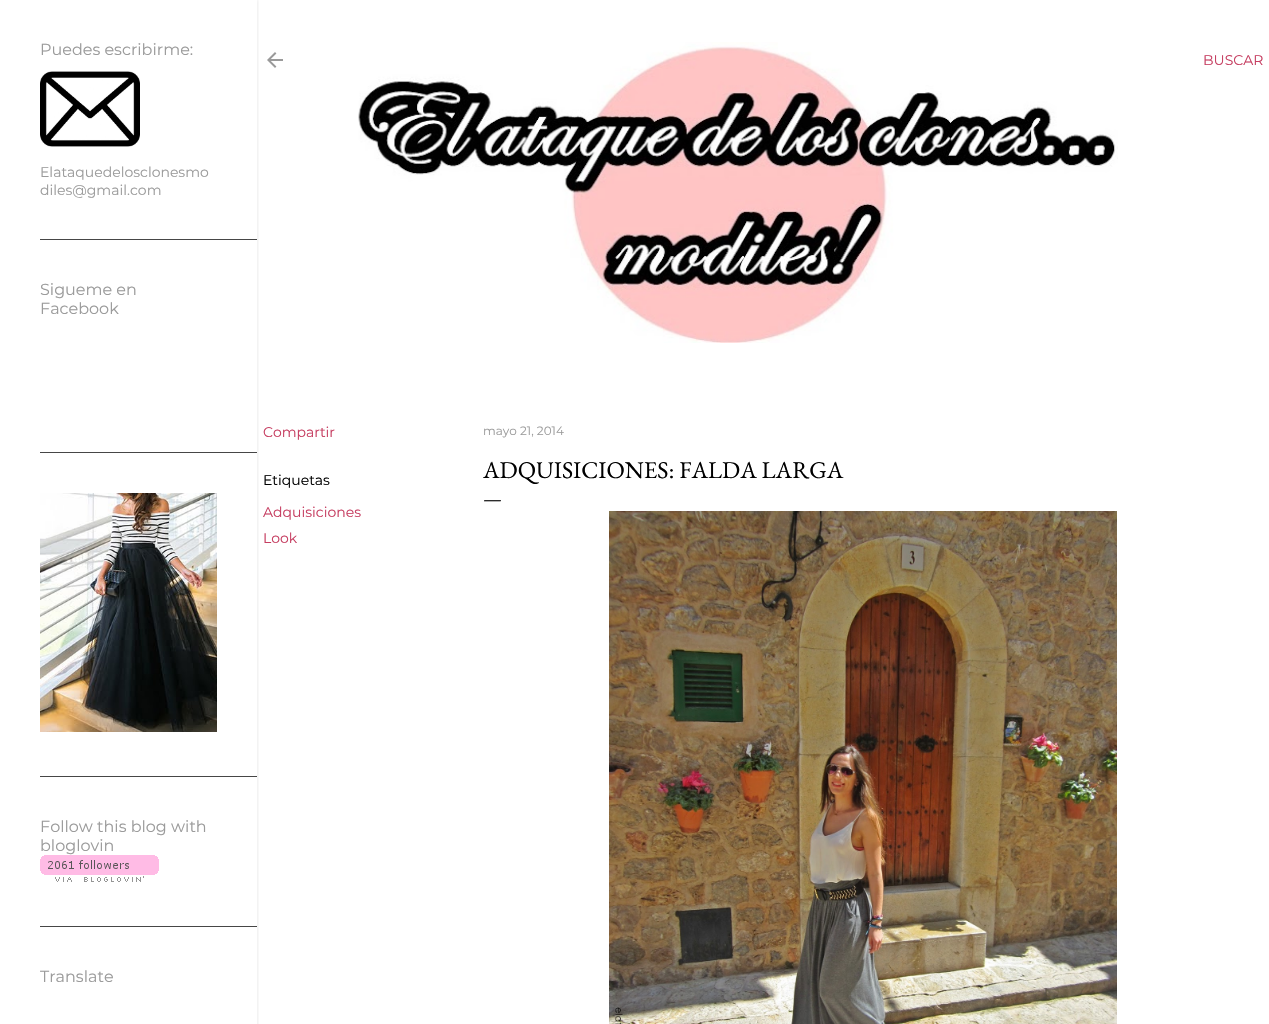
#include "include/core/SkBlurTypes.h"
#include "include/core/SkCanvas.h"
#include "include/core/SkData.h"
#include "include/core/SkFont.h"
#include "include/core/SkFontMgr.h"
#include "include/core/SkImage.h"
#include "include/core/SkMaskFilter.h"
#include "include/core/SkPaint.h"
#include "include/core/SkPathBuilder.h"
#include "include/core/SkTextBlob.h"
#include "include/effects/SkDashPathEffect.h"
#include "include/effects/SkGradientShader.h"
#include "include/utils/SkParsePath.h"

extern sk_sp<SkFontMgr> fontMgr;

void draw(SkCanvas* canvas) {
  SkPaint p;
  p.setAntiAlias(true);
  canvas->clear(SK_ColorWHITE);
  canvas->save();
  canvas->clipRect(SkRect::MakeLTRB(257, 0, 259, 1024));
  p.setColor(SkColorSetARGB(26, 70, 70, 70));
  p.setMaskFilter(SkMaskFilter::MakeBlur(kNormal_SkBlurStyle, 1.5f));
  canvas->drawRect(SkRect::MakeLTRB(1, 0, 258, 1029), p);
  p.setMaskFilter(nullptr);
  canvas->restore();
  canvas->drawImageRect(SkImages::DeferredFromEncodedData(SkData::MakeFromFileName("images/1.png")), SkRect::MakeLTRB(40, 71, 140, 147), SkSamplingOptions());
  p.setColor(SkColorSetRGB(70, 70, 70));
  canvas->drawRect(SkRect::MakeLTRB(40, 239, 257, 240), p);
  canvas->drawRect(SkRect::MakeLTRB(40, 452, 257, 453), p);
  canvas->drawImageRect(SkImages::DeferredFromEncodedData(SkData::MakeFromFileName("images/2.png")), SkRect::MakeLTRB(40, 493, 217, 732), SkSamplingOptions());
  canvas->drawRect(SkRect::MakeLTRB(40, 776, 257, 777), p);
  canvas->drawImageRect(SkImages::DeferredFromEncodedData(SkData::MakeFromFileName("images/3.png")), SkRect::MakeLTRB(40, 855, 159, 882), SkSamplingOptions());
  canvas->drawRect(SkRect::MakeLTRB(40, 926, 257, 927), p);
  canvas->drawImageRect(SkImages::DeferredFromEncodedData(SkData::MakeFromFileName("images/4.png")), SkRect::MakeLTRB(267, 52, 283, 68), SkSamplingOptions());
  canvas->drawImageRect(SkImages::DeferredFromEncodedData(SkData::MakeFromFileName("images/5.png")), SkRect::MakeLTRB(358, 42, 1118, 343), SkSamplingOptions());
  canvas->drawImageRect(SkImages::DeferredFromEncodedData(SkData::MakeFromFileName("images/6.png")), SkRect::MakeLTRB(609, 511, 1117, 1024), SkSamplingOptions());
  SkFont font1(fontMgr->matchFamilyStyle("Montserrat", SkFontStyle::Normal()), 16);
  font1.setSubpixel(true);
  p.setColor(SkColorSetRGB(155, 155, 155));
  canvas->drawString("Puedes escribirme:", 40, 55, font1, p);
  SkFont font2(fontMgr->matchFamilyStyle("Montserrat", SkFontStyle::Normal()), 14);
  font2.setSubpixel(true);
  canvas->drawString("Elataquedelosclonesmo", 40, 177, font2, p);
  canvas->drawString("diles@gmail.com", 40, 195, font2, p);
  canvas->drawString("Sigueme en", 40, 295, font1, p);
  canvas->drawString("Facebook", 40, 314, font1, p);
  canvas->drawString("Follow this blog with", 40, 832, font1, p);
  canvas->drawString("bloglovin", 40, 851, font1, p);
  canvas->drawString("Translate", 40, 982, font1, p);
  p.setColor(SkColorSetRGB(198, 62, 97));
  canvas->drawString("BUSCAR", 1203, 65, font2, p);
  canvas->drawString("Compartir", 263, 437, font2, p);
  p.setColor(SK_ColorBLACK);
  canvas->drawString("Etiquetas", 263, 485, font2, p);
  p.setColor(SkColorSetRGB(198, 62, 97));
  canvas->drawString("Adquisiciones", 263, 517, font2, p);
  canvas->drawString("Look", 263, 543, font2, p);
  SkFont font3(fontMgr->matchFamilyStyle("Montserrat", SkFontStyle::Normal()), 12);
  font3.setSubpixel(true);
  p.setColor(SkColorSetRGB(155, 155, 155));
  canvas->drawString("mayo 21, 2014", 483, 435, font3, p);
  SkFont font4(fontMgr->matchFamilyStyle("EB Garamond", SkFontStyle::Normal()), 24);
  font4.setSubpixel(true);
  p.setColor(SK_ColorBLACK);
  canvas->drawString("ADQUISICIONES: FALDA LARGA", 483, 478, font4, p);
  SkFont font5(fontMgr->matchFamilyStyle("EB Garamond", SkFontStyle::Normal()), 20);
  font5.setSubpixel(true);
  canvas->drawString("—", 483, 505, font5, p);
}
